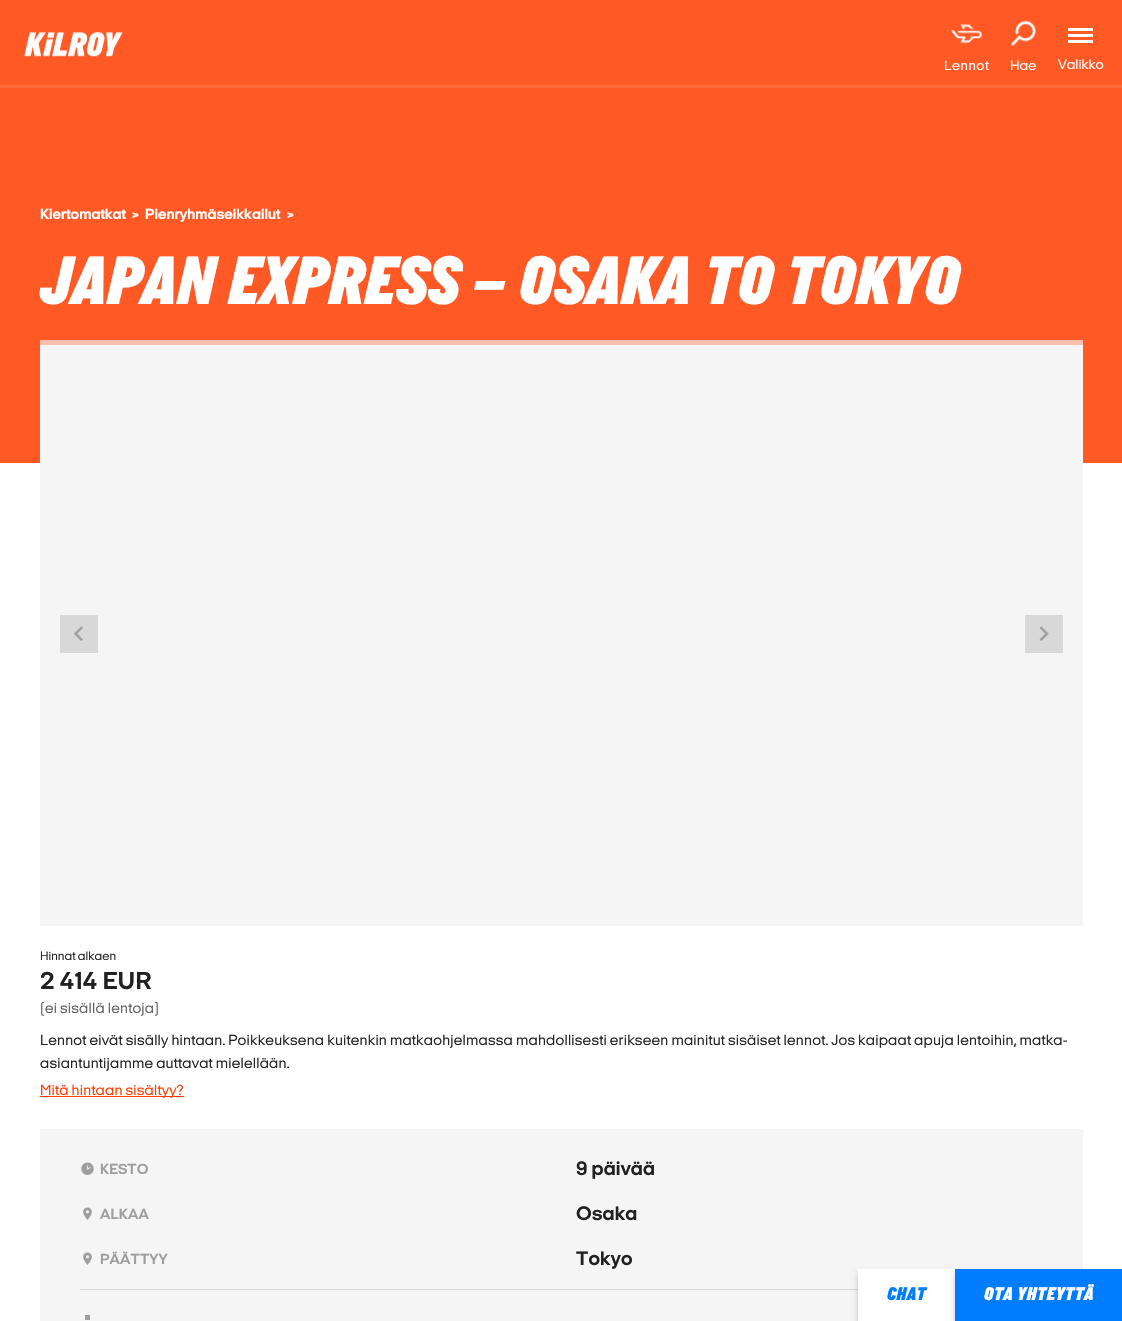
#include "include/core/SkBlurTypes.h"
#include "include/core/SkCanvas.h"
#include "include/core/SkData.h"
#include "include/core/SkFont.h"
#include "include/core/SkFontMgr.h"
#include "include/core/SkImage.h"
#include "include/core/SkMaskFilter.h"
#include "include/core/SkPaint.h"
#include "include/core/SkPathBuilder.h"
#include "include/core/SkTextBlob.h"
#include "include/effects/SkDashPathEffect.h"
#include "include/effects/SkGradientShader.h"
#include "include/utils/SkParsePath.h"

extern sk_sp<SkFontMgr> fontMgr;

void draw(SkCanvas* canvas) {
  SkPaint p;
  p.setAntiAlias(true);
  auto spacedText = [&](const char* s, float x, float y, const SkFont& font, const SkPaint& ink, float letter, float word) {
    std::vector<SkGlyphID> glyphs(font.countText(s, strlen(s), SkTextEncoding::kUTF8));
    std::vector<float> xs(glyphs.size());
    font.textToGlyphs(s, strlen(s), SkTextEncoding::kUTF8, glyphs);
    font.getXPos(glyphs, xs, x);
    float extra = 0;
    for (size_t i = 0; i < glyphs.size(); i++) {
      xs[i] += extra;
      extra += letter + word * (glyphs[i] == font.unicharToGlyph(' '));
    }
    canvas->drawTextBlob(SkTextBlob::MakeFromPosHGlyphs(glyphs, xs, y, font), 0, 0, ink);
  };
  canvas->clear(SK_ColorWHITE);
  p.setColor(SkColorSetRGB(255, 89, 38));
  canvas->drawRect(SkRect::MakeLTRB(0, 0, 1122, 463), p);
  p.setColor(SkColorSetRGB(255, 106, 60));
  canvas->drawRect(SkRect::MakeLTRB(0, 85, 1122, 88), p);
  canvas->drawImageRect(SkImages::DeferredFromEncodedData(SkData::MakeFromFileName("images/1.png")), SkRect::MakeLTRB(24, 32, 123, 57), SkSamplingOptions());
  canvas->drawImageRect(SkImages::DeferredFromEncodedData(SkData::MakeFromFileName("images/2.png")), SkRect::MakeLTRB(951, 24, 983, 44), SkSamplingOptions());
  canvas->drawImageRect(SkImages::DeferredFromEncodedData(SkData::MakeFromFileName("images/3.png")), SkRect::MakeLTRB(1010, 21, 1037, 47), SkSamplingOptions());
  p.setColor(SK_ColorWHITE);
  canvas->drawRect(SkRect::MakeLTRB(1068, 34, 1093, 37), p);
  canvas->drawRect(SkRect::MakeLTRB(1068, 28, 1093, 31), p);
  canvas->drawRect(SkRect::MakeLTRB(1068, 40, 1093, 43), p);
  p.setColor(SkColorSetRGB(245, 245, 245));
  canvas->drawRect(SkRect::MakeLTRB(40, 345, 1083, 926), p);
  p.setColor(SkColorSetRGB(248, 190, 172));
  canvas->drawRect(SkRect::MakeLTRB(40, 340, 1083, 345), p);
  p.setColor(SkColorSetRGB(216, 216, 216));
  canvas->drawRect(SkRect::MakeLTRB(60, 615, 98, 653), p);
  canvas->drawImageRect(SkImages::DeferredFromEncodedData(SkData::MakeFromFileName("images/4.png")), SkRect::MakeLTRB(74, 626, 83, 641), SkSamplingOptions());
  canvas->drawRect(SkRect::MakeLTRB(1025, 615, 1063, 653), p);
  canvas->drawImageRect(SkImages::DeferredFromEncodedData(SkData::MakeFromFileName("images/5.png")), SkRect::MakeLTRB(1039, 626, 1049, 641), SkSamplingOptions());
  p.setColor(SkColorSetRGB(255, 60, 0));
  canvas->drawRect(SkRect::MakeLTRB(40, 1096, 184, 1097), p);
  p.setColor(SkColorSetRGB(245, 245, 245));
  canvas->drawRect(SkRect::MakeLTRB(40, 1129, 1083, 1321), p);
  canvas->drawImageRect(SkImages::DeferredFromEncodedData(SkData::MakeFromFileName("images/6.png")), SkRect::MakeLTRB(81, 1162, 94, 1175), SkSamplingOptions());
  canvas->drawImageRect(SkImages::DeferredFromEncodedData(SkData::MakeFromFileName("images/7.png")), SkRect::MakeLTRB(83, 1207, 92, 1220), SkSamplingOptions());
  canvas->drawImageRect(SkImages::DeferredFromEncodedData(SkData::MakeFromFileName("images/7.png")), SkRect::MakeLTRB(83, 1252, 92, 1265), SkSamplingOptions());
  p.setColor(SkColorSetRGB(216, 216, 216));
  canvas->drawRect(SkRect::MakeLTRB(80, 1289, 858, 1290), p);
  p.setColor(SkColorSetRGB(158, 158, 158));
  canvas->drawRect(SkRect::MakeLTRB(85, 1315, 90, 1320), p);
  p.setColor(SkColorSetARGB(51, 0, 0, 0));
  p.setMaskFilter(SkMaskFilter::MakeBlur(kNormal_SkBlurStyle, 3));
  canvas->drawRect(SkRect::MakeLTRB(858, 1273, 955, 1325), p);
  p.setMaskFilter(nullptr);
  p.setColor(SK_ColorWHITE);
  canvas->drawRect(SkRect::MakeLTRB(858, 1269, 955, 1321), p);
  p.setColor(SkColorSetARGB(51, 0, 0, 0));
  p.setMaskFilter(SkMaskFilter::MakeBlur(kNormal_SkBlurStyle, 3));
  canvas->drawRect(SkRect::MakeLTRB(955, 1273, 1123, 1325), p);
  p.setMaskFilter(nullptr);
  p.setColor(SkColorSetRGB(0, 125, 255));
  canvas->drawRect(SkRect::MakeLTRB(955, 1269, 1122, 1321), p);
  SkFont font1(fontMgr->matchFamilyStyle("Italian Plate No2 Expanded", SkFontStyle::Normal()), 14);
  font1.setSubpixel(true);
  p.setColor(SK_ColorWHITE);
  spacedText("Lennot", 944, 70, font1, p, 0.5f, 0);
  canvas->drawString("Hae", 1010, 70, font1, p);
  canvas->drawString("Valikko", 1058, 69, font1, p);
  SkFont font2(fontMgr->matchFamilyStyle("Italian Plate No2 Expanded", SkFontStyle::Bold()), 15);
  font2.setSubpixel(true);
  canvas->drawString("Kiertomatkat", 40, 219, font2, p);
  canvas->drawString(">", 132, 219, font2, p);
  canvas->drawString("Pienryhmäseikkailut", 145, 219, font2, p);
  canvas->drawString(">", 287, 219, font2, p);
  SkFont font3(fontMgr->matchFamilyStyle("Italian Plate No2", SkFontStyle(900, SkFontStyle::kNormal_Width, SkFontStyle::kItalic_Slant)), 70);
  font3.setSubpixel(true);
  canvas->drawString("JAPAN EXPRESS – OSAKA TO TOKYO", 40, 304, font3, p);
  SkFont font4(fontMgr->matchFamilyStyle("Italian Plate No2 Expanded", SkFontStyle::Normal()), 12.5f);
  font4.setSubpixel(true);
  p.setColor(SkColorSetRGB(33, 33, 33));
  canvas->drawString("Hinnat alkaen", 40, 960, font4, p);
  SkFont font5(fontMgr->matchFamilyStyle("Italian Plate No2 Expanded", SkFontStyle::Bold()), 25);
  font5.setSubpixel(true);
  spacedText("2 414 EUR", 40, 989, font5, p, 0.5f, 0);
  SkFont font6(fontMgr->matchFamilyStyle("Italian Plate No2 Expanded", SkFontStyle::Normal()), 15);
  font6.setSubpixel(true);
  p.setColor(SkColorSetRGB(97, 97, 97));
  spacedText("(ei sisällä lentoja)", 40, 1013, font6, p, 0.19f, 0);
  p.setColor(SkColorSetRGB(33, 33, 33));
  spacedText("Lennot eivät sisälly hintaan. Poikkeuksena kuitenkin matkaohjelmassa mahdollisesti erikseen mainitut sisäiset lennot. Jos kaipaat apuja lentoihin, matka-", 40, 1045, font6, p, 0.19f, 0);
  spacedText("asiantuntijamme auttavat mielellään.", 40, 1068, font6, p, 0.19f, 0);
  p.setColor(SkColorSetRGB(255, 60, 0));
  spacedText("Mitä hintaan sisältyy?", 40, 1095, font6, p, 0.19f, 0);
  p.setColor(SkColorSetRGB(158, 158, 158));
  spacedText("KESTO", 100, 1174, font2, p, 0.19f, 0);
  SkFont font7(fontMgr->matchFamilyStyle("Italian Plate No2 Expanded", SkFontStyle::Bold()), 20);
  font7.setSubpixel(true);
  p.setColor(SkColorSetRGB(33, 33, 33));
  spacedText("9 päivää", 576, 1175, font7, p, 0.19f, 0);
  p.setColor(SkColorSetRGB(158, 158, 158));
  spacedText("ALKAA", 100, 1219, font2, p, 0.19f, 0);
  p.setColor(SkColorSetRGB(33, 33, 33));
  spacedText("Osaka", 576, 1220, font7, p, 0.19f, 0);
  p.setColor(SkColorSetRGB(158, 158, 158));
  spacedText("PÄÄTTYY", 100, 1264, font2, p, 0.19f, 0);
  p.setColor(SkColorSetRGB(33, 33, 33));
  spacedText("Tokyo", 576, 1265, font7, p, 0.19f, 0);
  SkFont font8(fontMgr->matchFamilyStyle("Italian Plate No2", SkFontStyle(900, SkFontStyle::kNormal_Width, SkFontStyle::kItalic_Slant)), 18.75f);
  font8.setSubpixel(true);
  p.setColor(SkColorSetRGB(0, 125, 255));
  spacedText("CHAT", 887, 1300, font8, p, 0.5f, 0);
  p.setColor(SK_ColorWHITE);
  spacedText("OTA YHTEYTTÄ", 984, 1300, font8, p, 0.5f, 0);
}
